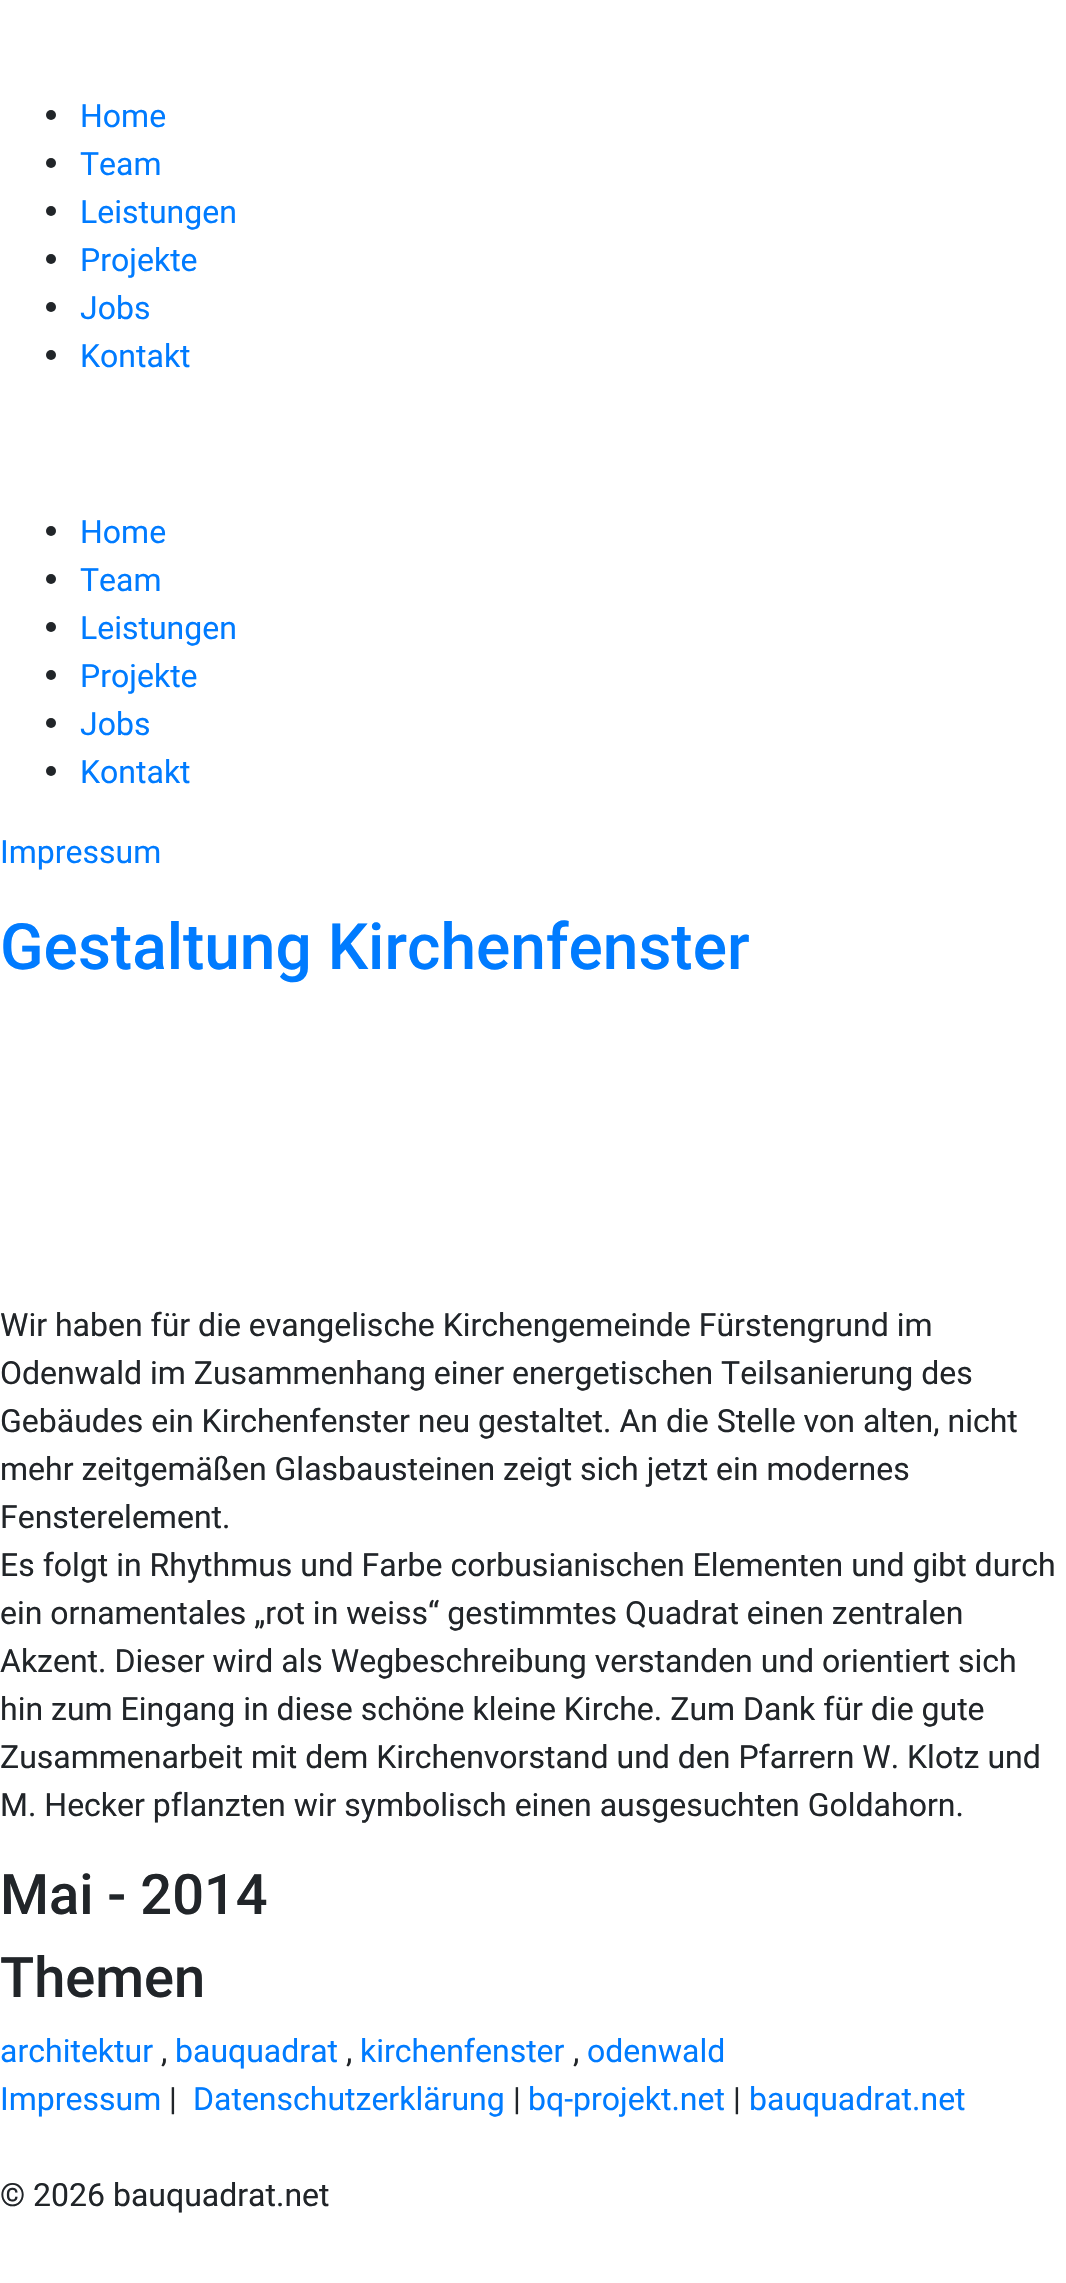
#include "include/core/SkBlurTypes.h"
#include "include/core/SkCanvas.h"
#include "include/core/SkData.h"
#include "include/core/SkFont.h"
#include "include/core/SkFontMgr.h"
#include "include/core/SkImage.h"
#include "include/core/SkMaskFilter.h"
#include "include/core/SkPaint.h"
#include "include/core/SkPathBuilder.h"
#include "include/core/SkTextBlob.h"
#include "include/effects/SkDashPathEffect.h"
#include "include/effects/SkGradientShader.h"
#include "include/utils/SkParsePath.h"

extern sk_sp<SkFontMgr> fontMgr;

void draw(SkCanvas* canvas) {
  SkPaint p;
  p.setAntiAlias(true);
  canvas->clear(SK_ColorWHITE);
  p.setColor(SkColorSetRGB(33, 37, 41));
  canvas->drawCircle(51, 115, 5, p);
  canvas->drawCircle(51, 163, 5, p);
  canvas->drawCircle(51, 211, 5, p);
  canvas->drawCircle(51, 259, 5, p);
  canvas->drawCircle(51, 307, 5, p);
  canvas->drawCircle(51, 355, 5, p);
  canvas->drawCircle(51, 531, 5, p);
  canvas->drawCircle(51, 579, 5, p);
  canvas->drawCircle(51, 627, 5, p);
  canvas->drawCircle(51, 675, 5, p);
  canvas->drawCircle(51, 723, 5, p);
  canvas->drawCircle(51, 771, 5, p);
  SkFont font1(fontMgr->matchFamilyStyle("Roboto", SkFontStyle::Normal()), 32);
  font1.setSubpixel(true);
  p.setColor(SkColorSetRGB(0, 123, 255));
  canvas->drawString("Home", 80, 127, font1, p);
  canvas->drawString("Team", 80, 175, font1, p);
  canvas->drawString("Leistungen", 80, 223, font1, p);
  canvas->drawString("Projekte", 80, 271, font1, p);
  canvas->drawString("Jobs", 80, 319, font1, p);
  canvas->drawString("Kontakt", 80, 367, font1, p);
  canvas->drawString("Home", 80, 543, font1, p);
  canvas->drawString("Team", 80, 591, font1, p);
  canvas->drawString("Leistungen", 80, 639, font1, p);
  canvas->drawString("Projekte", 80, 687, font1, p);
  canvas->drawString("Jobs", 80, 735, font1, p);
  canvas->drawString("Kontakt", 80, 783, font1, p);
  canvas->drawString("Impressum", 0, 863, font1, p);
  SkFont font2(fontMgr->matchFamilyStyle("Roboto", SkFontStyle(500, SkFontStyle::kNormal_Width, SkFontStyle::kUpright_Slant)), 64);
  font2.setSubpixel(true);
  canvas->drawString("Gestaltung Kirchenfenster", 0, 969, font2, p);
  p.setColor(SkColorSetRGB(33, 37, 41));
  canvas->drawString("Wir haben für die evangelische Kirchengemeinde Fürstengrund im", 0, 1336, font1, p);
  canvas->drawString("Odenwald im Zusammenhang einer energetischen Teilsanierung des", 0, 1384, font1, p);
  canvas->drawString("Gebäudes ein Kirchenfenster neu gestaltet. An die Stelle von alten, nicht", 0, 1432, font1, p);
  canvas->drawString("mehr zeitgemäßen Glasbausteinen zeigt sich jetzt ein modernes", 0, 1480, font1, p);
  canvas->drawString("Fensterelement.", 0, 1528, font1, p);
  canvas->drawString("Es folgt in Rhythmus und Farbe corbusianischen Elementen und gibt durch", 0, 1576, font1, p);
  canvas->drawString("ein ornamentales „rot in weiss“ gestimmtes Quadrat einen zentralen", 0, 1624, font1, p);
  canvas->drawString("Akzent. Dieser wird als Wegbeschreibung verstanden und orientiert sich", 0, 1672, font1, p);
  canvas->drawString("hin zum Eingang in diese schöne kleine Kirche. Zum Dank für die gute", 0, 1720, font1, p);
  canvas->drawString("Zusammenarbeit mit dem Kirchenvorstand und den Pfarrern W. Klotz und", 0, 1768, font1, p);
  canvas->drawString("M. Hecker pflanzten wir symbolisch einen ausgesuchten Goldahorn.", 0, 1816, font1, p);
  SkFont font3(fontMgr->matchFamilyStyle("Roboto", SkFontStyle(500, SkFontStyle::kNormal_Width, SkFontStyle::kUpright_Slant)), 56);
  font3.setSubpixel(true);
  canvas->drawString("Mai - 2014", 0, 1914, font3, p);
  canvas->drawString("Themen", 0, 1997, font3, p);
  p.setColor(SkColorSetRGB(0, 123, 255));
  canvas->drawString("architektur", 0, 2062, font1, p);
  p.setColor(SkColorSetRGB(33, 37, 41));
  canvas->drawString(",", 161, 2062, font1, p);
  p.setColor(SkColorSetRGB(0, 123, 255));
  canvas->drawString("bauquadrat", 175, 2062, font1, p);
  p.setColor(SkColorSetRGB(33, 37, 41));
  canvas->drawString(",", 346, 2062, font1, p);
  p.setColor(SkColorSetRGB(0, 123, 255));
  canvas->drawString("kirchenfenster", 360, 2062, font1, p);
  p.setColor(SkColorSetRGB(33, 37, 41));
  canvas->drawString(",", 573, 2062, font1, p);
  p.setColor(SkColorSetRGB(0, 123, 255));
  canvas->drawString("odenwald", 587, 2062, font1, p);
  canvas->drawString("Impressum", 0, 2110, font1, p);
  p.setColor(SkColorSetRGB(33, 37, 41));
  canvas->drawString("|", 169, 2110, font1, p);
  p.setColor(SkColorSetRGB(0, 123, 255));
  canvas->drawString("Datenschutzerklärung", 193, 2110, font1, p);
  p.setColor(SkColorSetRGB(33, 37, 41));
  canvas->drawString("|", 513, 2110, font1, p);
  p.setColor(SkColorSetRGB(0, 123, 255));
  canvas->drawString("bq-projekt.net", 528, 2110, font1, p);
  p.setColor(SkColorSetRGB(33, 37, 41));
  canvas->drawString("|", 733, 2110, font1, p);
  p.setColor(SkColorSetRGB(0, 123, 255));
  canvas->drawString("bauquadrat.net", 749, 2110, font1, p);
  p.setColor(SkColorSetRGB(33, 37, 41));
  canvas->drawString("© 2026 bauquadrat.net", 0, 2206, font1, p);
}
